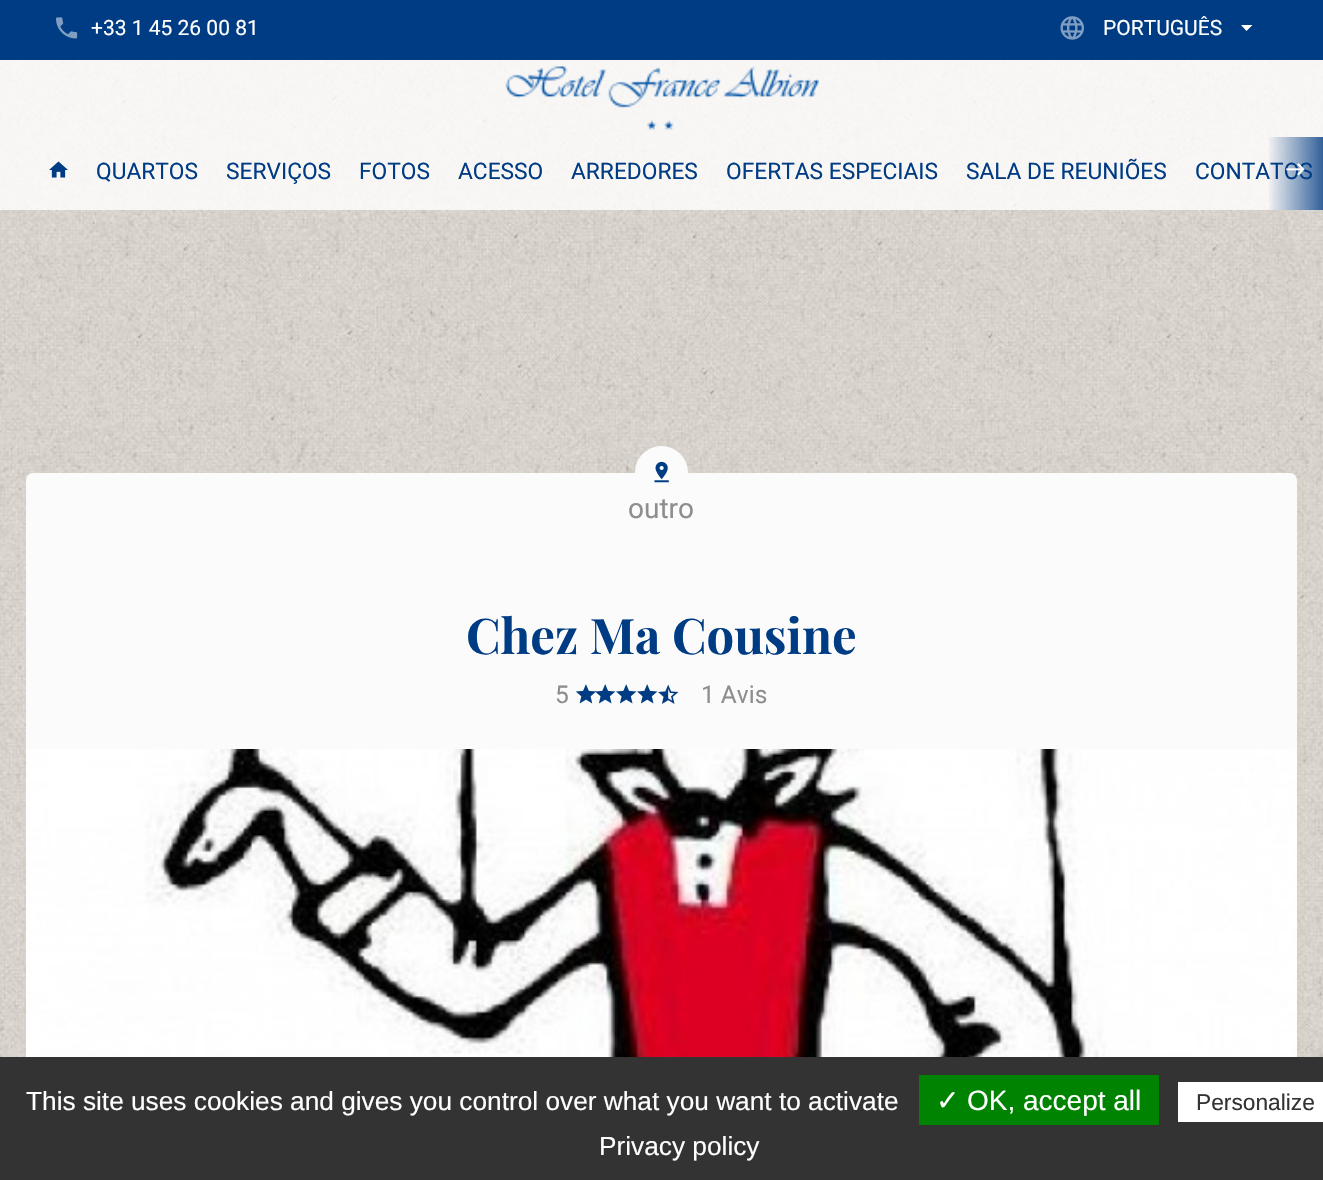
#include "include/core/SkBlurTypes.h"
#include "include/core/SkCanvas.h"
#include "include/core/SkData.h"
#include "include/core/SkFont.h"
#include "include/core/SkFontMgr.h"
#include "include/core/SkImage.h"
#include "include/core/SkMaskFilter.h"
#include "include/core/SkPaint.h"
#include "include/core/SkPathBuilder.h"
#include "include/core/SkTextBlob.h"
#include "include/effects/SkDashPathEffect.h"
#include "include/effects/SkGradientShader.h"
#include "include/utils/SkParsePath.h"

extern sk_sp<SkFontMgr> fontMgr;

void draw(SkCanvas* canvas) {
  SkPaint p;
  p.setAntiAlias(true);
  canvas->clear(SK_ColorWHITE);
  canvas->drawImageRect(SkImages::DeferredFromEncodedData(SkData::MakeFromFileName("images/1.png")), SkRect::MakeLTRB(0, 60, 1323, 1057), SkSamplingOptions());
  p.setColor(SkColorSetARGB(204, 255, 255, 255));
  canvas->drawRect(SkRect::MakeLTRB(0, 60, 1323, 210), p);
  p.setColor(SkColorSetRGB(0, 60, 132));
  canvas->drawRect(SkRect::MakeLTRB(0, 0, 1323, 60), p);
  canvas->drawImageRect(SkImages::DeferredFromEncodedData(SkData::MakeFromFileName("images/2.png")), SkRect::MakeLTRB(56, 17, 78, 39), SkSamplingOptions());
  canvas->drawImageRect(SkImages::DeferredFromEncodedData(SkData::MakeFromFileName("images/3.png")), SkRect::MakeLTRB(1060, 16, 1084, 40), SkSamplingOptions());
  p.setColor(SK_ColorWHITE);
  canvas->drawPath(SkPathBuilder().moveTo(1241, 25).lineTo(1252.5f, 25).lineTo(1246.5f, 31).close().detach(), p);
  canvas->drawImageRect(SkImages::DeferredFromEncodedData(SkData::MakeFromFileName("images/4.png")), SkRect::MakeLTRB(505, 66, 819, 130), SkSamplingOptions());
  canvas->drawImageRect(SkImages::DeferredFromEncodedData(SkData::MakeFromFileName("images/6.png")), SkRect::MakeLTRB(49, 161, 68, 178), SkSamplingOptions());
  p.setColor(SkColorSetARGB(128, 215, 205, 188));
  p.setMaskFilter(SkMaskFilter::MakeBlur(kNormal_SkBlurStyle, 5));
  canvas->drawRoundRect(SkRect::MakeLTRB(30, 476, 1300, 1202), 7, 7, p);
  p.setMaskFilter(nullptr);
  p.setColor(SkColorSetRGB(251, 251, 251));
  canvas->drawRoundRect(SkRect::MakeLTRB(26, 473, 1297, 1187), 7, 7, p);
  canvas->drawCircle(661.5f, 472.5f, 26.5f, p);
  canvas->drawImageRect(SkImages::DeferredFromEncodedData(SkData::MakeFromFileName("images/7.png")), SkRect::MakeLTRB(654, 461, 669, 483), SkSamplingOptions());
  canvas->drawImageRect(SkImages::DeferredFromEncodedData(SkData::MakeFromFileName("images/8.png")), SkRect::MakeLTRB(575, 684, 596, 704), SkSamplingOptions());
  canvas->drawImageRect(SkImages::DeferredFromEncodedData(SkData::MakeFromFileName("images/9.png")), SkRect::MakeLTRB(595, 684, 616, 704), SkSamplingOptions());
  canvas->drawImageRect(SkImages::DeferredFromEncodedData(SkData::MakeFromFileName("images/10.png")), SkRect::MakeLTRB(616, 684, 637, 704), SkSamplingOptions());
  canvas->drawImageRect(SkImages::DeferredFromEncodedData(SkData::MakeFromFileName("images/10.png")), SkRect::MakeLTRB(637, 684, 658, 704), SkSamplingOptions());
  canvas->drawImageRect(SkImages::DeferredFromEncodedData(SkData::MakeFromFileName("images/11.png")), SkRect::MakeLTRB(658, 684, 679, 704), SkSamplingOptions());
  canvas->drawImageRect(SkImages::DeferredFromEncodedData(SkData::MakeFromFileName("images/12.png")), SkRect::MakeLTRB(26, 749, 1297, 1057), SkSamplingOptions());
  p.setColor(SkColorSetRGB(51, 51, 51));
  canvas->drawRect(SkRect::MakeLTRB(0, 1057, 1323, 1180), p);
  p.setColor(SkColorSetRGB(0, 131, 0));
  canvas->drawRect(SkRect::MakeLTRB(919, 1075, 1159, 1125), p);
  p.setColor(SK_ColorWHITE);
  canvas->drawRect(SkRect::MakeLTRB(1178, 1082, 1323, 1122), p);
  SkFont font1(fontMgr->matchFamilyStyle("Roboto", SkFontStyle::Normal()), 21);
  font1.setSubpixel(true);
  canvas->drawString("+33 1 45 26 00 81", 91, 35, font1, p);
  canvas->drawString("PORTUGUÊS", 1103, 35, font1, p);
  SkFont font2(fontMgr->matchFamilyStyle("Roboto", SkFontStyle::Normal()), 22.75f);
  font2.setSubpixel(true);
  p.setColor(SkColorSetRGB(0, 60, 132));
  canvas->drawString("QUARTOS", 96, 179, font2, p);
  canvas->drawString("SERVIÇOS", 226, 179, font2, p);
  canvas->drawString("FOTOS", 359, 179, font2, p);
  canvas->drawString("ACESSO", 458, 179, font2, p);
  canvas->drawString("ARREDORES", 571, 179, font2, p);
  canvas->drawString("OFERTAS ESPECIAIS", 726, 179, font2, p);
  canvas->drawString("SALA DE REUNIÕES", 966, 179, font2, p);
  canvas->drawString("CONTATOS", 1195, 179, font2, p);
  {
    const SkColor colors[] = {SkColorSetARGB(0, 0, 59, 131), SkColorSetARGB(204, 0, 59, 131)};
    const float stops[] = {0, 1};
    const SkPoint ends[] = {{1267, 173}, {1323, 173}};
    p.setShader(SkGradientShader::MakeLinear(ends, colors, stops, 2, SkTileMode::kClamp));
    p.setAlpha(255);
  }
  canvas->drawRect(SkRect::MakeLTRB(1269, 137, 1323, 210), p);
  canvas->drawImageRect(SkImages::DeferredFromEncodedData(SkData::MakeFromFileName("images/5.png")), SkRect::MakeLTRB(1286, 163, 1305, 176), SkSamplingOptions());
  SkFont font3(fontMgr->matchFamilyStyle("Roboto", SkFontStyle::Normal()), 28);
  font3.setSubpixel(true);
  p.setShader(nullptr);
  p.setColor(SkColorSetRGB(143, 142, 142));
  canvas->drawString("outro", 628, 518, font3, p);
  SkFont font4(fontMgr->matchFamilyStyle("Playfair Display", SkFontStyle::Bold()), 49);
  font4.setSubpixel(true);
  p.setColor(SkColorSetRGB(0, 60, 132));
  canvas->drawString("Chez Ma Cousine", 466, 654, font4, p);
  SkFont font5(fontMgr->matchFamilyStyle("Roboto", SkFontStyle::Normal()), 24.5f);
  font5.setSubpixel(true);
  p.setColor(SkColorSetRGB(143, 142, 142));
  canvas->drawString("5", 555, 703, font5, p);
  canvas->drawString("1 Avis", 701, 703, font5, p);
  SkFont font6(fontMgr->matchFamilyStyle("Liberation Sans", SkFontStyle::Normal()), 26.25f);
  font6.setSubpixel(true);
  p.setColor(SK_ColorWHITE);
  canvas->drawString("This site uses cookies and gives you control over what you want to activate", 26, 1110, font6, p);
  SkFont font7(fontMgr->matchFamilyStyle("DejaVu Sans", SkFontStyle::Normal()), 28);
  font7.setSubpixel(true);
  canvas->drawString("✓", 936, 1110, font7, p);
  SkFont font8(fontMgr->matchFamilyStyle("Liberation Sans", SkFontStyle::Normal()), 28);
  font8.setSubpixel(true);
  canvas->drawString("OK, accept all", 967, 1110, font8, p);
  SkFont font9(fontMgr->matchFamilyStyle("Liberation Sans", SkFontStyle::Normal()), 22.75f);
  font9.setSubpixel(true);
  p.setColor(SkColorSetRGB(51, 51, 51));
  canvas->drawString("Personalize", 1196, 1110, font9, p);
  p.setColor(SK_ColorWHITE);
  canvas->drawString("Privacy policy", 599, 1155, font6, p);
}
